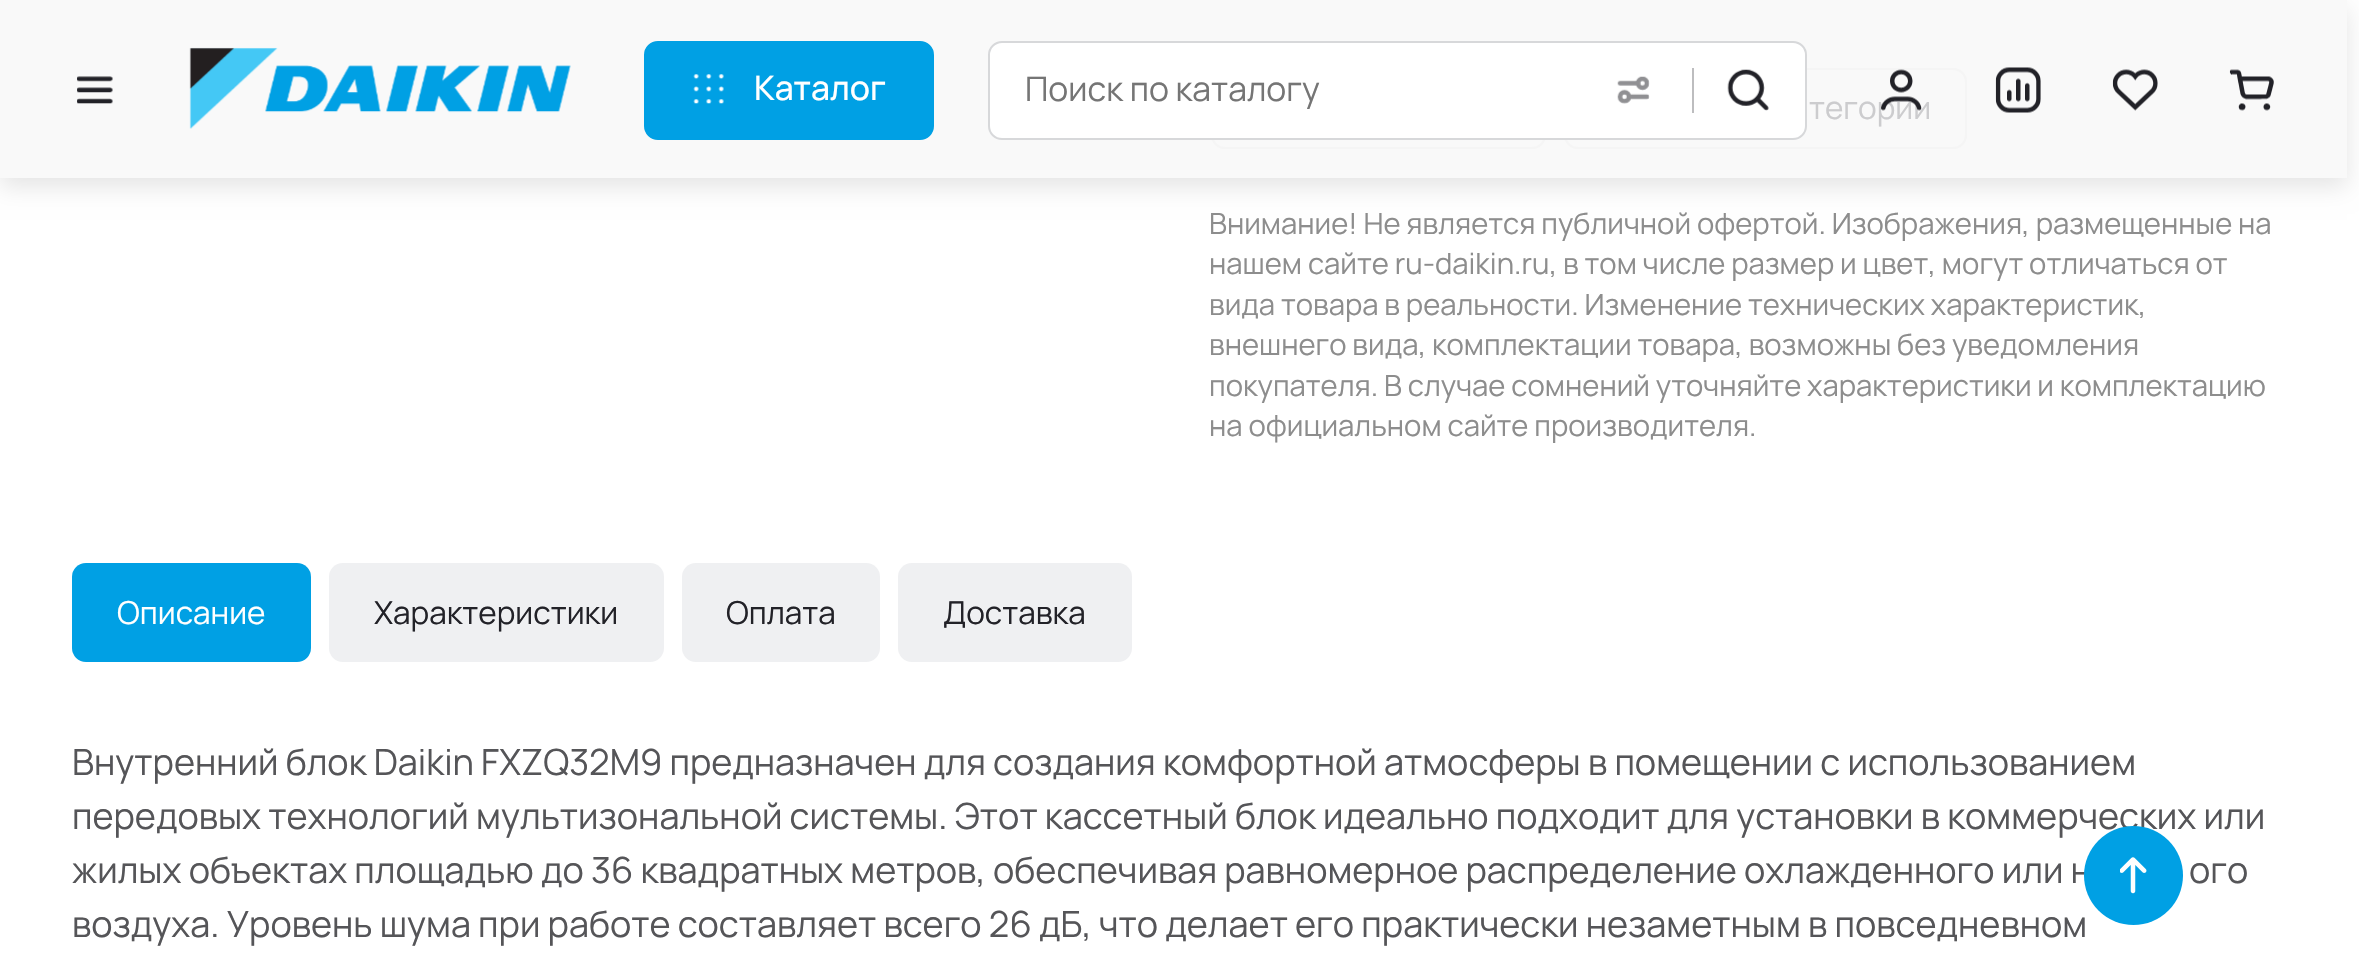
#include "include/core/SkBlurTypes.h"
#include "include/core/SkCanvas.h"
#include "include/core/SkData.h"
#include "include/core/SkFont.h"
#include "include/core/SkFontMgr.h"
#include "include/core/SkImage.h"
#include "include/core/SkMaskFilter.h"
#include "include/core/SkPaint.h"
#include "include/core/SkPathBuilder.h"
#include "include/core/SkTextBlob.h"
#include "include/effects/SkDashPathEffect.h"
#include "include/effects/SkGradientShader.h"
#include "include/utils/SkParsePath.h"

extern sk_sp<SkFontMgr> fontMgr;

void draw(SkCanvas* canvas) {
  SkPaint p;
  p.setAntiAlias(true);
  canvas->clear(SK_ColorWHITE);
  p.setColor(SkColorSetRGB(249, 249, 249));
  canvas->drawRect(SkRect::MakeLTRB(0, 0, 2347, 178), p);
  p.setStyle(SkPaint::kStroke_Style);
  p.setStrokeWidth(2);
  p.setColor(SkColorSetRGB(245, 245, 245));
  canvas->drawRoundRect(SkRect::MakeLTRB(1212, 69, 1545, 148), 13, 13, p);
  canvas->drawRoundRect(SkRect::MakeLTRB(1565, 69, 1966, 148), 13, 13, p);
  canvas->save();
  canvas->clipPath(SkPathBuilder(SkPathFillType::kEvenOdd).moveTo(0, 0).lineTo(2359, 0).lineTo(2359, 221).lineTo(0, 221).close().moveTo(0, 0).lineTo(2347, 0).lineTo(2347, 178).lineTo(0, 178).close().detach(), true);
  p.setStyle(SkPaint::kFill_Style);
  p.setColor(SkColorSetARGB(26, 0, 0, 0));
  p.setMaskFilter(SkMaskFilter::MakeBlur(kNormal_SkBlurStyle, 11));
  canvas->drawRect(SkRect::MakeLTRB(0, 9, 2347, 187), p);
  p.setMaskFilter(nullptr);
  canvas->restore();
  canvas->drawImageRect(SkImages::DeferredFromEncodedData(SkData::MakeFromFileName("images/1.png")), SkRect::MakeLTRB(77, 76, 113, 104), SkSamplingOptions());
  canvas->drawImageRect(SkImages::DeferredFromEncodedData(SkData::MakeFromFileName("images/2.png")), SkRect::MakeLTRB(189, 47, 571, 129), SkSamplingOptions());
  p.setColor(SkColorSetRGB(0, 160, 228));
  canvas->drawRoundRect(SkRect::MakeLTRB(645, 42, 933, 139), 13, 13, p);
  p.setStyle(SkPaint::kStroke_Style);
  canvas->drawRoundRect(SkRect::MakeLTRB(645, 42, 933, 139), 13, 13, p);
  canvas->drawImageRect(SkImages::DeferredFromEncodedData(SkData::MakeFromFileName("images/3.png")), SkRect::MakeLTRB(693, 74, 724, 104), SkSamplingOptions());
  p.setStyle(SkPaint::kFill_Style);
  p.setColor(SK_ColorWHITE);
  canvas->drawRoundRect(SkRect::MakeLTRB(989, 42, 1806, 139), 13, 13, p);
  p.setStyle(SkPaint::kStroke_Style);
  p.setColor(SkColorSetRGB(215, 216, 218));
  canvas->drawRoundRect(SkRect::MakeLTRB(989, 42, 1806, 139), 13, 13, p);
  canvas->drawImageRect(SkImages::DeferredFromEncodedData(SkData::MakeFromFileName("images/4.png")), SkRect::MakeLTRB(1617, 76, 1650, 104), SkSamplingOptions());
  p.setStyle(SkPaint::kFill_Style);
  p.setColor(SkColorSetRGB(189, 189, 191));
  canvas->drawRect(SkRect::MakeLTRB(1692, 68, 1694, 113), p);
  canvas->drawImageRect(SkImages::DeferredFromEncodedData(SkData::MakeFromFileName("images/5.png")), SkRect::MakeLTRB(1727, 69, 1769, 111), SkSamplingOptions());
  canvas->drawImageRect(SkImages::DeferredFromEncodedData(SkData::MakeFromFileName("images/7.png")), SkRect::MakeLTRB(1995, 67, 2041, 113), SkSamplingOptions());
  canvas->drawImageRect(SkImages::DeferredFromEncodedData(SkData::MakeFromFileName("images/8.png")), SkRect::MakeLTRB(2112, 69, 2158, 111), SkSamplingOptions());
  canvas->drawImageRect(SkImages::DeferredFromEncodedData(SkData::MakeFromFileName("images/9.png")), SkRect::MakeLTRB(2229, 69, 2274, 111), SkSamplingOptions());
  p.setColor(SkColorSetRGB(0, 160, 228));
  canvas->drawRoundRect(SkRect::MakeLTRB(72, 563, 311, 662), 14, 14, p);
  p.setColor(SkColorSetRGB(239, 240, 242));
  canvas->drawRoundRect(SkRect::MakeLTRB(329, 563, 664, 662), 14, 14, p);
  canvas->drawRoundRect(SkRect::MakeLTRB(682, 563, 880, 662), 14, 14, p);
  canvas->drawRoundRect(SkRect::MakeLTRB(898, 563, 1132, 662), 14, 14, p);
  SkFont font1(fontMgr->matchFamilyStyle("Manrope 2", SkFontStyle(200, SkFontStyle::kNormal_Width, SkFontStyle::kUpright_Slant)), 33.75f);
  font1.setSubpixel(true);
  p.setColor(SK_ColorWHITE);
  canvas->drawString("Каталог", 754, 100, font1, p);
  SkFont font2(fontMgr->matchFamilyStyle("Manrope", SkFontStyle(200, SkFontStyle::kNormal_Width, SkFontStyle::kUpright_Slant)), 33.75f);
  font2.setSubpixel(true);
  p.setColor(SkColorSetRGB(117, 117, 117));
  canvas->drawString("Поиск по каталогу", 1025, 101, font2, p);
  SkFont font3(fontMgr->matchFamilyStyle("Manrope", SkFontStyle(200, SkFontStyle::kNormal_Width, SkFontStyle::kUpright_Slant)), 31.5f);
  font3.setSubpixel(true);
  p.setColor(SkColorSetRGB(204, 204, 206));
  canvas->drawString("тегории", 1809, 119, font3, p);
  canvas->drawImageRect(SkImages::DeferredFromEncodedData(SkData::MakeFromFileName("images/6.png")), SkRect::MakeLTRB(1881, 69, 1922, 111), SkSamplingOptions());
  SkFont font4(fontMgr->matchFamilyStyle("Manrope", SkFontStyle(200, SkFontStyle::kNormal_Width, SkFontStyle::kUpright_Slant)), 29.25f);
  font4.setSubpixel(true);
  p.setColor(SkColorSetRGB(141, 141, 141));
  canvas->drawString("Внимание! Не является публичной офертой. Изображения, размещенные на", 1209, 234, font4, p);
  canvas->drawString("нашем сайте ru-daikin.ru, в том числе размер и цвет, могут отличаться от", 1209, 274, font4, p);
  canvas->drawString("вида товара в реальности. Изменение технических характеристик,", 1209, 315, font4, p);
  canvas->drawString("внешнего вида, комплектации товара, возможны без уведомления", 1209, 355, font4, p);
  canvas->drawString("покупателя. В случае сомнений уточняйте характеристики и комплектацию", 1209, 396, font4, p);
  canvas->drawString("на официальном сайте производителя.", 1209, 436, font4, p);
  p.setColor(SK_ColorWHITE);
  canvas->drawString("Описание", 117, 624, font3, p);
  p.setColor(SkColorSetRGB(34, 34, 40));
  canvas->drawString("Характеристики", 374, 624, font3, p);
  canvas->drawString("Оплата", 726, 624, font3, p);
  canvas->drawString("Доставка", 943, 624, font3, p);
  SkFont font5(fontMgr->matchFamilyStyle("Manrope", SkFontStyle(200, SkFontStyle::kNormal_Width, SkFontStyle::kUpright_Slant)), 36);
  font5.setSubpixel(true);
  p.setColor(SkColorSetRGB(85, 85, 88));
  canvas->drawString("Внутренний блок Daikin FXZQ32M9 предназначен для создания комфортной атмосферы в помещении с использованием", 72, 775, font5, p);
  canvas->drawString("передовых технологий мультизональной системы. Этот кассетный блок идеально подходит для установки в коммерческих или", 72, 829, font5, p);
  canvas->drawString("жилых объектах площадью до 36 квадратных метров, обеспечивая равномерное распределение охлажденного или н", 72, 883, font5, p);
  canvas->drawString("ого", 2189, 883, font5, p);
  canvas->drawString("воздуха. Уровень шума при работе составляет всего 26 дБ, что делает его практически незаметным в повседневном", 72, 937, font5, p);
  p.setColor(SkColorSetRGB(0, 160, 228));
  canvas->drawCircle(2133.5f, 875.5f, 49.5f, p);
  canvas->drawImageRect(SkImages::DeferredFromEncodedData(SkData::MakeFromFileName("images/10.png")), SkRect::MakeLTRB(2120, 857, 2147, 894), SkSamplingOptions());
}
